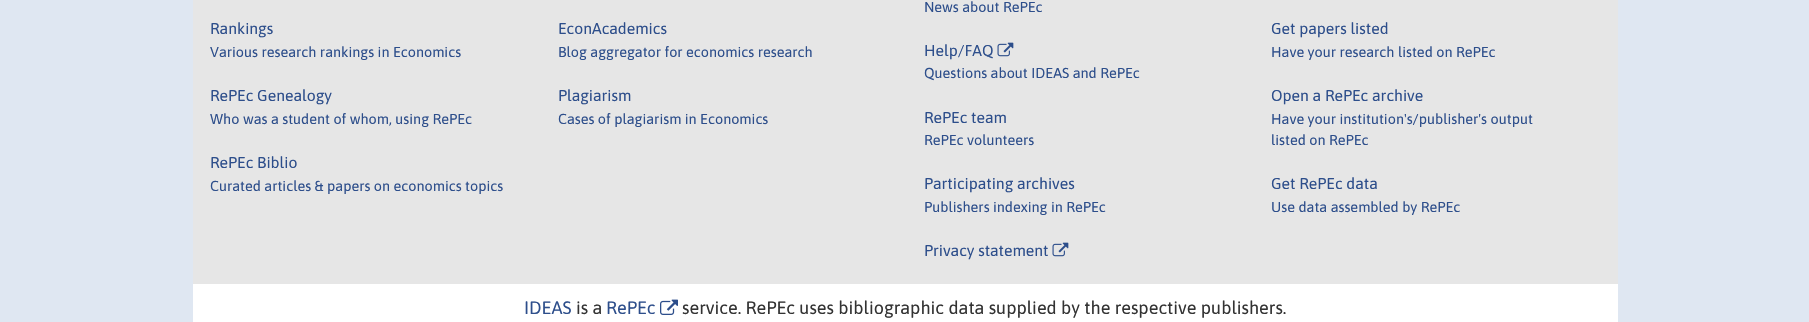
#include "include/core/SkBlurTypes.h"
#include "include/core/SkCanvas.h"
#include "include/core/SkData.h"
#include "include/core/SkFont.h"
#include "include/core/SkFontMgr.h"
#include "include/core/SkImage.h"
#include "include/core/SkMaskFilter.h"
#include "include/core/SkPaint.h"
#include "include/core/SkPathBuilder.h"
#include "include/core/SkTextBlob.h"
#include "include/effects/SkDashPathEffect.h"
#include "include/effects/SkGradientShader.h"
#include "include/utils/SkParsePath.h"

extern sk_sp<SkFontMgr> fontMgr;

void draw(SkCanvas* canvas) {
  SkPaint p;
  p.setAntiAlias(true);
  canvas->clear(SkColorSetRGB(223, 231, 242));
  p.setColor(SK_ColorWHITE);
  canvas->drawRect(SkRect::MakeLTRB(193, 284, 1618, 322), p);
  p.setColor(SkColorSetRGB(230, 230, 230));
  canvas->drawRect(SkRect::MakeLTRB(193, 0, 1618, 284), p);
  canvas->drawImageRect(SkImages::DeferredFromEncodedData(SkData::MakeFromFileName("images/1.png")), SkRect::MakeLTRB(997, 42, 1014, 57), SkSamplingOptions());
  canvas->drawImageRect(SkImages::DeferredFromEncodedData(SkData::MakeFromFileName("images/1.png")), SkRect::MakeLTRB(1052, 242, 1069, 257), SkSamplingOptions());
  canvas->drawImageRect(SkImages::DeferredFromEncodedData(SkData::MakeFromFileName("images/2.png")), SkRect::MakeLTRB(660, 299, 678, 315), SkSamplingOptions());
  SkFont font1(fontMgr->matchFamilyStyle("Asap", SkFontStyle::Normal()), 15.75f);
  font1.setSubpixel(true);
  p.setColor(SkColorSetRGB(45, 78, 139));
  canvas->drawString("Rankings", 210, 34, font1, p);
  SkFont font2(fontMgr->matchFamilyStyle("Asap", SkFontStyle::Normal()), 14.4f);
  font2.setSubpixel(true);
  canvas->drawString("Various research rankings in Economics", 210, 57, font2, p);
  canvas->drawString("RePEc Genealogy", 210, 101, font1, p);
  canvas->drawString("Who was a student of whom, using RePEc", 210, 124, font2, p);
  canvas->drawString("RePEc Biblio", 210, 168, font1, p);
  canvas->drawString("Curated articles & papers on economics topics", 210, 191, font2, p);
  canvas->drawString("EconAcademics", 558, 34, font1, p);
  canvas->drawString("Blog aggregator for economics research", 558, 57, font2, p);
  canvas->drawString("Plagiarism", 558, 101, font1, p);
  canvas->drawString("Cases of plagiarism in Economics", 558, 124, font2, p);
  canvas->drawString("News about RePEc", 924, 12, font2, p);
  canvas->drawString("Help/FAQ", 924, 56, font1, p);
  canvas->drawString("Questions about IDEAS and RePEc", 924, 78, font2, p);
  canvas->drawString("RePEc team", 924, 123, font1, p);
  canvas->drawString("RePEc volunteers", 924, 145, font2, p);
  canvas->drawString("Participating archives", 924, 189, font1, p);
  canvas->drawString("Publishers indexing in RePEc", 924, 212, font2, p);
  canvas->drawString("Privacy statement", 924, 256, font1, p);
  canvas->drawString("Get papers listed", 1271, 34, font1, p);
  canvas->drawString("Have your research listed on RePEc", 1271, 57, font2, p);
  canvas->drawString("Open a RePEc archive", 1271, 101, font1, p);
  canvas->drawString("Have your institution's/publisher's output", 1271, 124, font2, p);
  canvas->drawString("listed on RePEc", 1271, 145, font2, p);
  canvas->drawString("Get RePEc data", 1271, 189, font1, p);
  canvas->drawString("Use data assembled by RePEc", 1271, 212, font2, p);
  SkFont font3(fontMgr->matchFamilyStyle("Asap", SkFontStyle::Normal()), 18);
  font3.setSubpixel(true);
  canvas->drawString("IDEAS", 524, 314, font3, p);
  p.setColor(SkColorSetRGB(51, 51, 51));
  canvas->drawString("is a", 576, 314, font3, p);
  p.setColor(SkColorSetRGB(45, 78, 139));
  canvas->drawString("RePEc", 606, 314, font3, p);
  p.setColor(SkColorSetRGB(51, 51, 51));
  canvas->drawString("service. RePEc uses bibliographic data supplied by the respective publishers.", 682, 314, font3, p);
}
